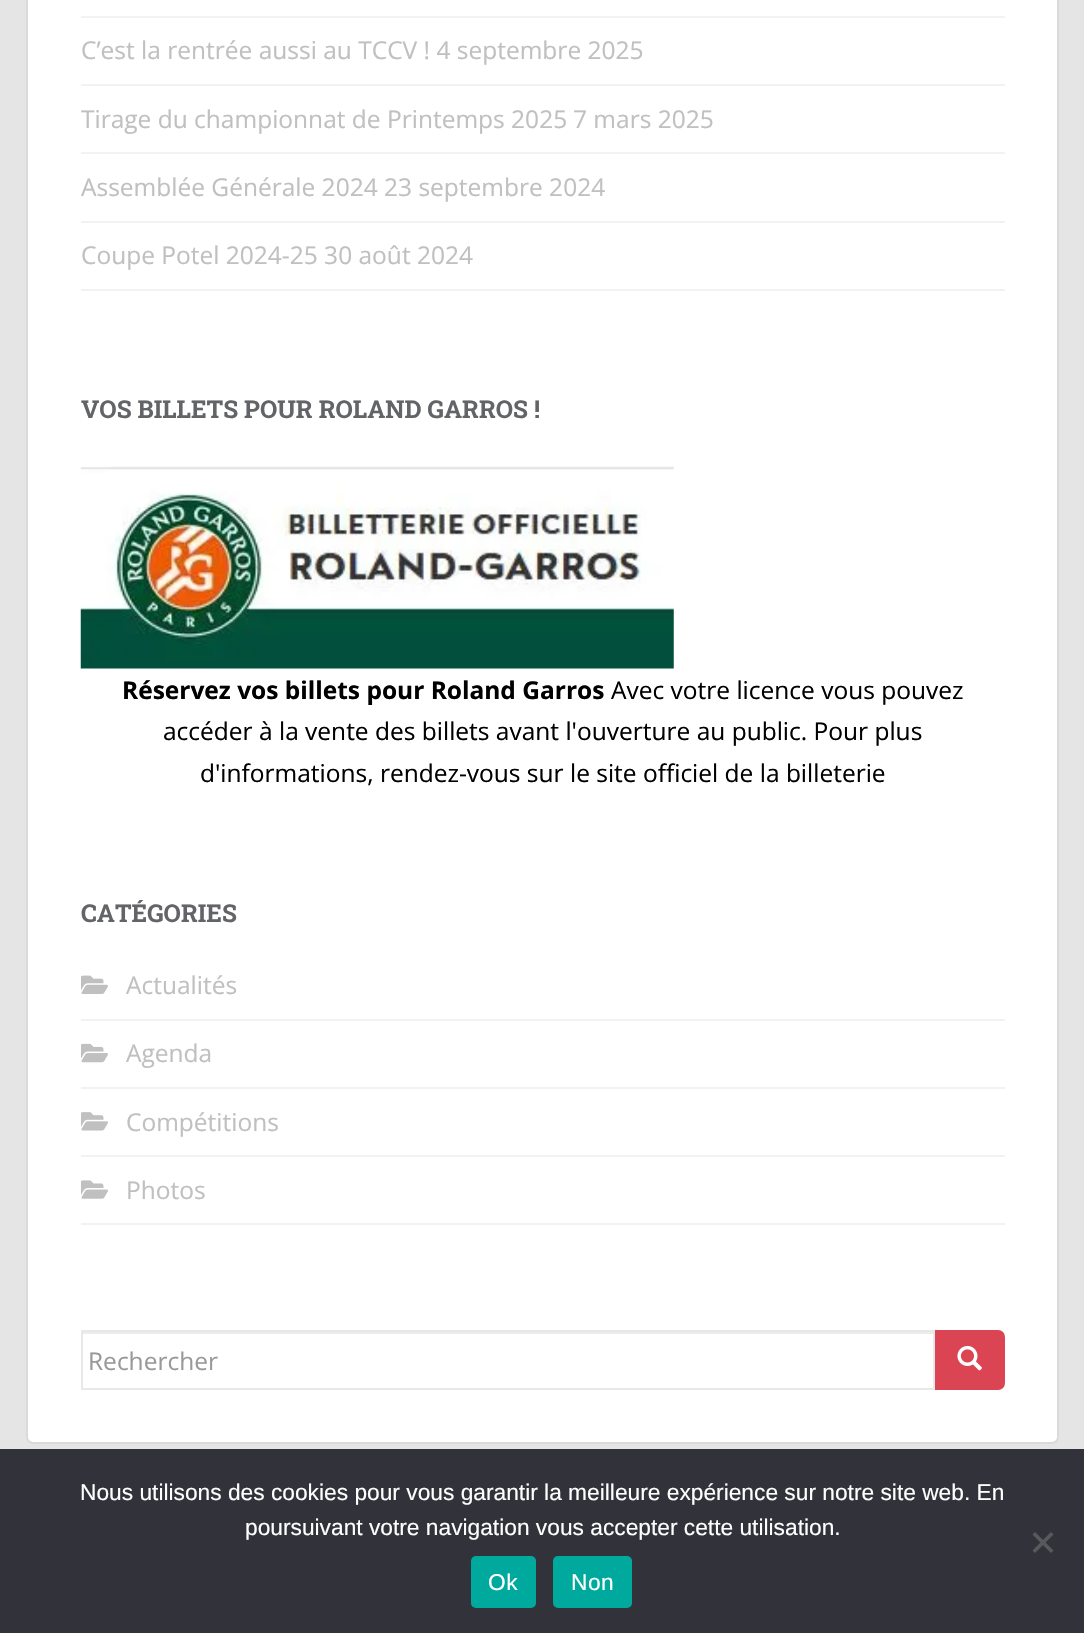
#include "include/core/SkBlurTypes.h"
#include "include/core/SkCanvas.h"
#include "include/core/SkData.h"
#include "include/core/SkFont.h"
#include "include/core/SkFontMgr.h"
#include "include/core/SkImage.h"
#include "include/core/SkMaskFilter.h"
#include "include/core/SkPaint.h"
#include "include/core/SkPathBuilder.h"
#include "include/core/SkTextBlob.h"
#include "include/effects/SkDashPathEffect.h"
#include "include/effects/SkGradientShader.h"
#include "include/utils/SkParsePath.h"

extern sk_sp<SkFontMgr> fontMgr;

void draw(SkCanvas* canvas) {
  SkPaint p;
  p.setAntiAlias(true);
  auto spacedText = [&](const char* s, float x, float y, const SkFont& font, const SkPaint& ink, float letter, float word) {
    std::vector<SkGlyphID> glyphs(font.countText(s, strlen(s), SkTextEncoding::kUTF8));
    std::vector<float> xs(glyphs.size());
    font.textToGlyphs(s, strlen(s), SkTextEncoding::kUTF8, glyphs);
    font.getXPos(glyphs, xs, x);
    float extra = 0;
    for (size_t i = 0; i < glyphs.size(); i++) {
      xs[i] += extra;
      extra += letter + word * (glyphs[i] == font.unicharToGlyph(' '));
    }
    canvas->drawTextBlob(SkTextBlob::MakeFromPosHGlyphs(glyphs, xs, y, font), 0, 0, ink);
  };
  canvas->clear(SkColorSetRGB(229, 229, 229));
  p.setColor(SK_ColorWHITE);
  canvas->drawRoundRect(SkRect::MakeLTRB(27, -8, 1058, 1443), 6, 6, p);
  p.setStyle(SkPaint::kStroke_Style);
  p.setStrokeWidth(2);
  p.setColor(SkColorSetRGB(218, 218, 218));
  canvas->drawRoundRect(SkRect::MakeLTRB(27, -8, 1058, 1443), 6, 6, p);
  p.setStyle(SkPaint::kFill_Style);
  p.setColor(SkColorSetRGB(242, 242, 242));
  canvas->drawRect(SkRect::MakeLTRB(81, 16, 1005, 18), p);
  canvas->drawRect(SkRect::MakeLTRB(81, 84, 1005, 86), p);
  canvas->drawRect(SkRect::MakeLTRB(81, 152, 1005, 154), p);
  canvas->drawRect(SkRect::MakeLTRB(81, 221, 1005, 223), p);
  canvas->drawRect(SkRect::MakeLTRB(81, 289, 1005, 291), p);
  canvas->drawImageRect(SkImages::DeferredFromEncodedData(SkData::MakeFromFileName("images/1.png")), SkRect::MakeLTRB(80, 466, 674, 669), SkSamplingOptions());
  canvas->drawRect(SkRect::MakeLTRB(81, 1019, 1005, 1021), p);
  canvas->drawImageRect(SkImages::DeferredFromEncodedData(SkData::MakeFromFileName("images/2.png")), SkRect::MakeLTRB(81, 975, 108, 994), SkSamplingOptions());
  canvas->drawRect(SkRect::MakeLTRB(81, 1087, 1005, 1089), p);
  canvas->drawImageRect(SkImages::DeferredFromEncodedData(SkData::MakeFromFileName("images/3.png")), SkRect::MakeLTRB(81, 1043, 108, 1063), SkSamplingOptions());
  canvas->drawRect(SkRect::MakeLTRB(81, 1155, 1005, 1157), p);
  canvas->drawImageRect(SkImages::DeferredFromEncodedData(SkData::MakeFromFileName("images/4.png")), SkRect::MakeLTRB(81, 1112, 108, 1131), SkSamplingOptions());
  canvas->drawRect(SkRect::MakeLTRB(81, 1223, 1005, 1225), p);
  canvas->drawImageRect(SkImages::DeferredFromEncodedData(SkData::MakeFromFileName("images/5.png")), SkRect::MakeLTRB(81, 1180, 108, 1199), SkSamplingOptions());
  p.setColor(SkColorSetRGB(236, 236, 236));
  canvas->drawRect(SkRect::MakeLTRB(82, 1332, 933, 1334), p);
  p.setStyle(SkPaint::kStroke_Style);
  p.setColor(SkColorSetRGB(232, 232, 232));
  canvas->drawRect(SkRect::MakeLTRB(82, 1331, 934, 1389), p);
  p.setStyle(SkPaint::kFill_Style);
  p.setColor(SkColorSetRGB(218, 68, 83));
  canvas->drawPath(SkPathBuilder().moveTo(936, 1331).lineTo(998, 1331).cubicTo(1001.5f, 1331, 1004, 1333.5f, 1004, 1337).lineTo(1004, 1383).cubicTo(1004, 1386.5f, 1001.5f, 1389, 998, 1389).lineTo(936, 1389).close().detach(), p);
  p.setStyle(SkPaint::kStroke_Style);
  canvas->drawPath(SkPathBuilder().moveTo(936, 1331).lineTo(998, 1331).cubicTo(1001.5f, 1331, 1004, 1333.5f, 1004, 1337).lineTo(1004, 1383).cubicTo(1004, 1386.5f, 1001.5f, 1389, 998, 1389).lineTo(936, 1389).close().detach(), p);
  canvas->drawImageRect(SkImages::DeferredFromEncodedData(SkData::MakeFromFileName("images/6.png")), SkRect::MakeLTRB(957, 1345, 982, 1371), SkSamplingOptions());
  p.setStyle(SkPaint::kFill_Style);
  p.setColor(SkColorSetRGB(50, 50, 58));
  canvas->drawRect(SkRect::MakeLTRB(0, 1449, 1084, 1633), p);
  p.setColor(SkColorSetRGB(89, 89, 93));
  canvas->drawPath(SkPathBuilder().moveTo(1051, 1532).lineTo(1053.5f, 1534.5f).lineTo(1035, 1553).lineTo(1032.5f, 1550.5f).close().detach(), p);
  canvas->drawPath(SkPathBuilder().moveTo(1032.5f, 1534.5f).lineTo(1035, 1532).lineTo(1053.5f, 1550.5f).lineTo(1051, 1553).close().detach(), p);
  p.setColor(SkColorSetRGB(0, 169, 157));
  canvas->drawRoundRect(SkRect::MakeLTRB(471, 1556, 536, 1608), 5, 5, p);
  canvas->drawRoundRect(SkRect::MakeLTRB(553, 1556, 632, 1608), 5, 5, p);
  SkFont font1(fontMgr->matchFamilyStyle("Open Sans", SkFontStyle::Normal()), 24.5f);
  font1.setSubpixel(true);
  p.setColor(SkColorSetRGB(193, 192, 192));
  canvas->drawString("C’est la rentrée aussi au TCCV ! 4 septembre 2025", 81, 59, font1, p);
  canvas->save();
  canvas->clipRect(SkRect::MakeLTRB(81, 0, 1005, 308));
  canvas->drawString("Tirage du championnat de Printemps 2025", 81, 128, font1, p);
  canvas->restore();
  canvas->drawString("7 mars 2025", 573, 128, font1, p);
  canvas->drawString("Assemblée Générale 2024 23 septembre 2024", 81, 196, font1, p);
  canvas->drawString("Coupe Potel 2024-25 30 août 2024", 81, 264, font1, p);
  SkFont font2(fontMgr->matchFamilyStyle("Roboto Slab", SkFontStyle::Bold()), 24.5f);
  font2.setSubpixel(true);
  p.setColor(SkColorSetRGB(99, 100, 103));
  canvas->drawString("VOS BILLETS POUR ROLAND GARROS !", 81, 418, font2, p);
  SkFont font3(fontMgr->matchFamilyStyle("Open Sans", SkFontStyle::Bold()), 24.5f);
  font3.setSubpixel(true);
  p.setColor(SK_ColorBLACK);
  canvas->drawString("Réservez vos billets pour Roland Garros", 122, 699, font3, p);
  canvas->drawString("Avec votre licence vous pouvez", 611, 699, font1, p);
  canvas->drawString("accéder à la vente des billets avant l'ouverture au public. Pour plus", 163, 740, font1, p);
  canvas->drawString("d'informations, rendez-vous sur le site officiel de la billeterie", 200, 782, font1, p);
  p.setColor(SkColorSetRGB(99, 100, 103));
  canvas->drawString("CATÉGORIES", 81, 922, font2, p);
  p.setColor(SkColorSetRGB(193, 192, 192));
  canvas->drawString("Actualités", 126, 994, font1, p);
  canvas->drawString("Agenda", 126, 1062, font1, p);
  canvas->drawString("Compétitions", 126, 1131, font1, p);
  canvas->drawString("Photos", 126, 1199, font1, p);
  p.setColor(SkColorSetRGB(153, 153, 153));
  canvas->drawString("Rechercher", 88, 1370, font1, p);
  SkFont font4(fontMgr->matchFamilyStyle("Liberation Sans", SkFontStyle::Normal()), 22.75f);
  font4.setSubpixel(true);
  p.setColor(SK_ColorWHITE);
  canvas->drawString("Nous utilisons des cookies pour vous garantir la meilleure expérience sur notre site web. En", 80, 1500, font4, p);
  canvas->drawString("poursuivant votre navigation vous accepter cette utilisation.", 245, 1535, font4, p);
  spacedText("Ok", 488, 1590, font4, p, 0.5f, 0);
  spacedText("Non", 571, 1590, font4, p, 0.5f, 0);
}
